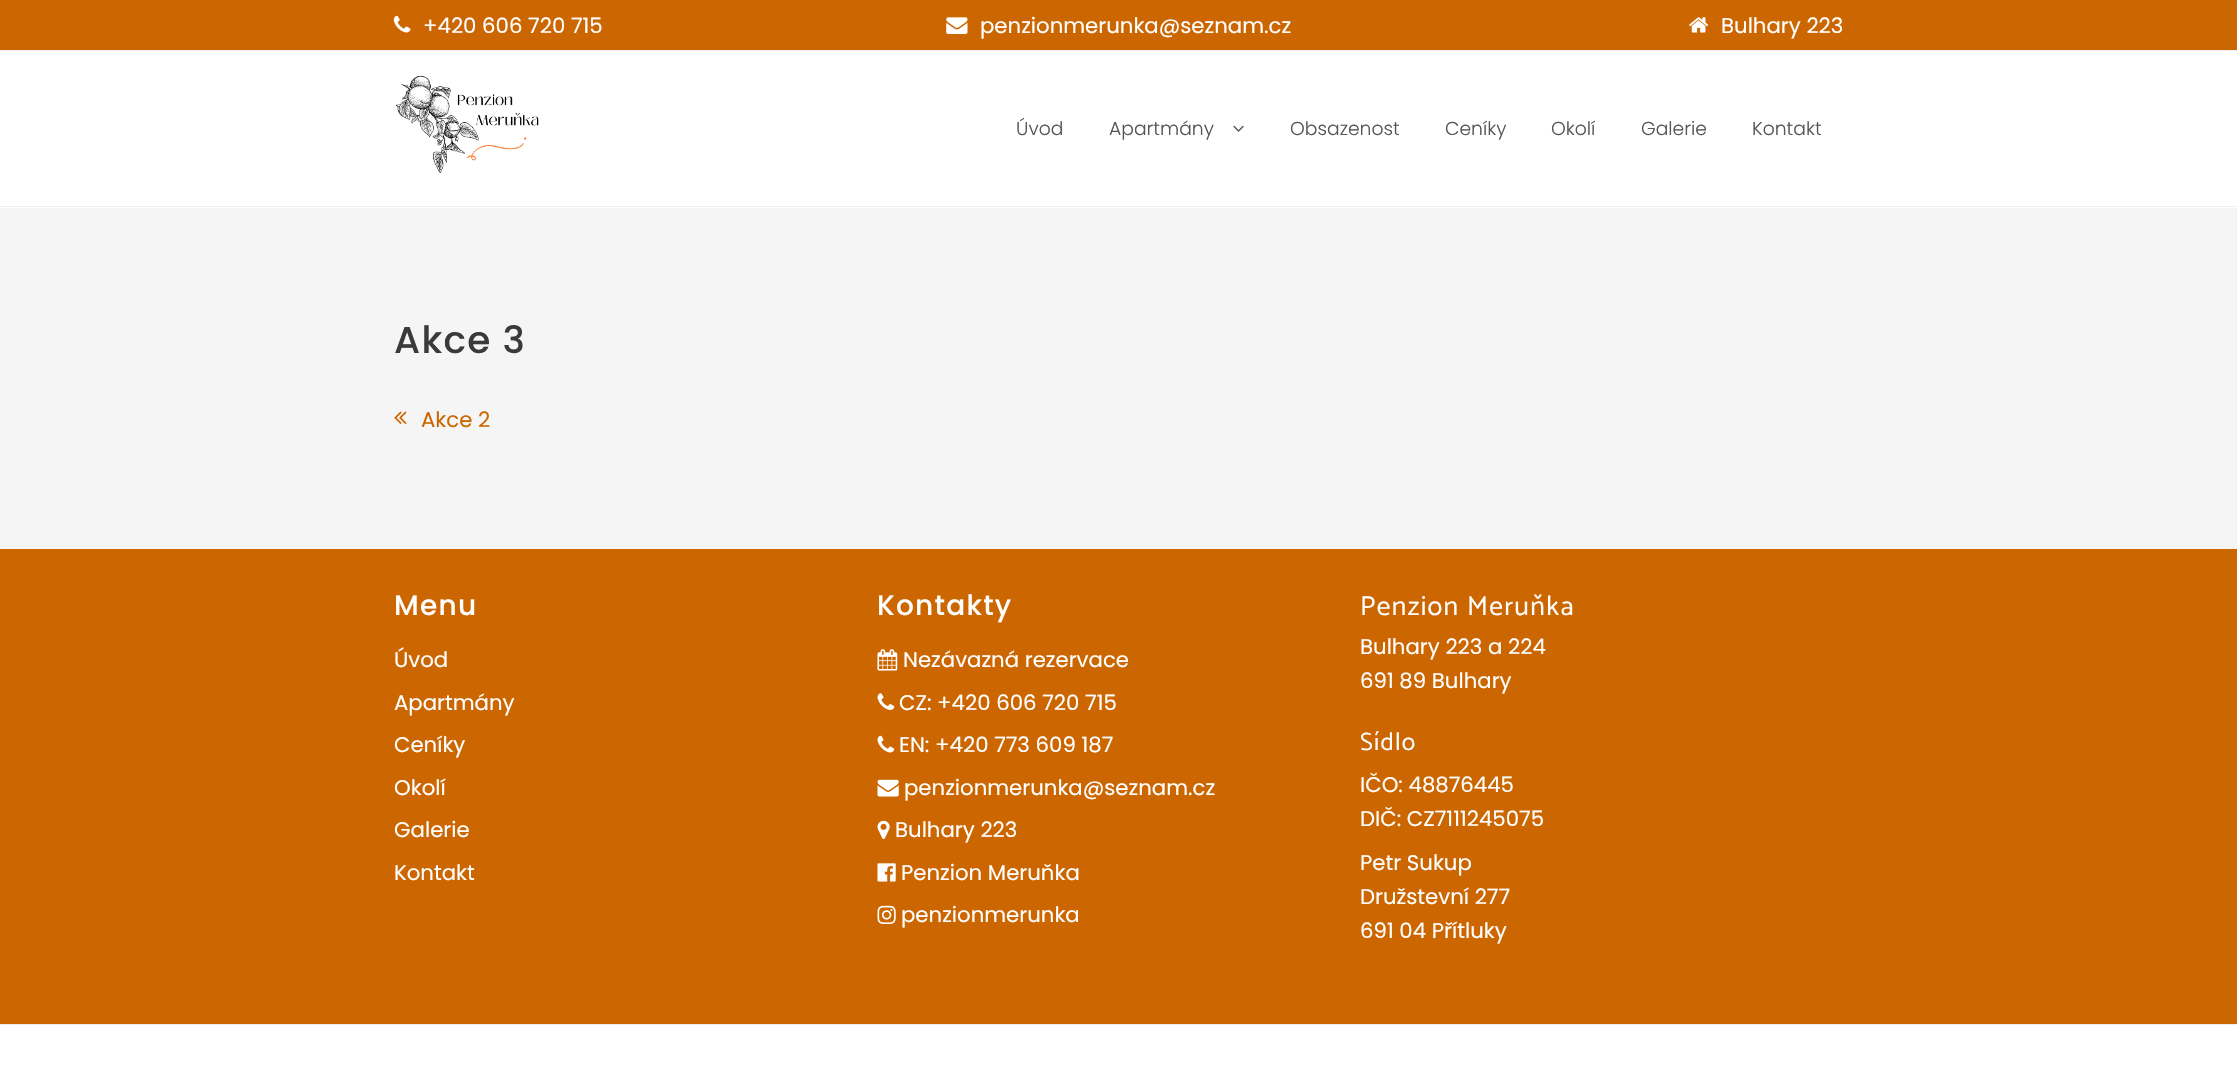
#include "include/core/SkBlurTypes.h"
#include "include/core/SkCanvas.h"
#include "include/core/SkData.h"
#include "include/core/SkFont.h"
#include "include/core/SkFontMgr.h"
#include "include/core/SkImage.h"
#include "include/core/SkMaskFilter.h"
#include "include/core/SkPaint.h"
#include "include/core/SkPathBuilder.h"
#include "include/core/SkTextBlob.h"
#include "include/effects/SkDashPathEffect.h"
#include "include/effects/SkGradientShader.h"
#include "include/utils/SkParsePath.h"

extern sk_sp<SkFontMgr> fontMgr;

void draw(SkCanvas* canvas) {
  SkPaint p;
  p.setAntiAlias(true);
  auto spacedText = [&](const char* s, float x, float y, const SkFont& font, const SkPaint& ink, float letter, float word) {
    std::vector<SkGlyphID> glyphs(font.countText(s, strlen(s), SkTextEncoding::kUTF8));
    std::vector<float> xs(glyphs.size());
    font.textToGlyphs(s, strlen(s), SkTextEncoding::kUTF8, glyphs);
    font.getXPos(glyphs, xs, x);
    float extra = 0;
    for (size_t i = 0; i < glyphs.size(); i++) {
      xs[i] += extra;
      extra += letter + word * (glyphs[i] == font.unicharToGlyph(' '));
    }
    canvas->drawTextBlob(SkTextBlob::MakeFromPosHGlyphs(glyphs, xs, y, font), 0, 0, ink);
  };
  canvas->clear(SkColorSetRGB(245, 245, 245));
  p.setColor(SkColorSetRGB(204, 102, 0));
  canvas->drawRect(SkRect::MakeLTRB(0, 0, 2237, 50), p);
  p.setColor(SkColorSetRGB(238, 238, 238));
  canvas->drawRect(SkRect::MakeLTRB(0, 50, 2237, 51), p);
  canvas->drawImageRect(SkImages::DeferredFromEncodedData(SkData::MakeFromFileName("images/1.png")), SkRect::MakeLTRB(393, 15, 411, 33), SkSamplingOptions());
  canvas->drawImageRect(SkImages::DeferredFromEncodedData(SkData::MakeFromFileName("images/2.png")), SkRect::MakeLTRB(946, 17, 968, 34), SkSamplingOptions());
  canvas->drawImageRect(SkImages::DeferredFromEncodedData(SkData::MakeFromFileName("images/3.png")), SkRect::MakeLTRB(1689, 17, 1709, 33), SkSamplingOptions());
  p.setColor(SK_ColorWHITE);
  canvas->drawRect(SkRect::MakeLTRB(0, 51, 2237, 208), p);
  p.setColor(SkColorSetRGB(238, 238, 238));
  canvas->drawRect(SkRect::MakeLTRB(0, 206, 2237, 207), p);
  canvas->drawImageRect(SkImages::DeferredFromEncodedData(SkData::MakeFromFileName("images/4.png")), SkRect::MakeLTRB(395, 75, 539, 173), SkSamplingOptions());
  canvas->drawImageRect(SkImages::DeferredFromEncodedData(SkData::MakeFromFileName("images/5.png")), SkRect::MakeLTRB(1233, 125, 1244, 132), SkSamplingOptions());
  canvas->drawImageRect(SkImages::DeferredFromEncodedData(SkData::MakeFromFileName("images/6.png")), SkRect::MakeLTRB(394, 411, 407, 424), SkSamplingOptions());
  p.setColor(SkColorSetRGB(204, 102, 0));
  canvas->drawRect(SkRect::MakeLTRB(0, 549, 2237, 1024), p);
  canvas->drawImageRect(SkImages::DeferredFromEncodedData(SkData::MakeFromFileName("images/7.png")), SkRect::MakeLTRB(877, 649, 898, 671), SkSamplingOptions());
  canvas->drawImageRect(SkImages::DeferredFromEncodedData(SkData::MakeFromFileName("images/8.png")), SkRect::MakeLTRB(877, 693, 895, 710), SkSamplingOptions());
  canvas->drawImageRect(SkImages::DeferredFromEncodedData(SkData::MakeFromFileName("images/9.png")), SkRect::MakeLTRB(877, 735, 895, 753), SkSamplingOptions());
  canvas->drawImageRect(SkImages::DeferredFromEncodedData(SkData::MakeFromFileName("images/10.png")), SkRect::MakeLTRB(877, 779, 899, 797), SkSamplingOptions());
  canvas->drawImageRect(SkImages::DeferredFromEncodedData(SkData::MakeFromFileName("images/11.png")), SkRect::MakeLTRB(877, 820, 890, 839), SkSamplingOptions());
  canvas->drawImageRect(SkImages::DeferredFromEncodedData(SkData::MakeFromFileName("images/12.png")), SkRect::MakeLTRB(877, 863, 896, 882), SkSamplingOptions());
  canvas->drawImageRect(SkImages::DeferredFromEncodedData(SkData::MakeFromFileName("images/13.png")), SkRect::MakeLTRB(877, 905, 896, 924), SkSamplingOptions());
  p.setColor(SK_ColorWHITE);
  canvas->drawRect(SkRect::MakeLTRB(0, 1025, 2237, 1082), p);
  p.setColor(SkColorSetRGB(238, 238, 238));
  canvas->drawRect(SkRect::MakeLTRB(0, 1024, 2237, 1025), p);
  SkFont font1(fontMgr->matchFamilyStyle("Poppins", SkFontStyle::Normal()), 21.25f);
  font1.setSubpixel(true);
  p.setColor(SK_ColorWHITE);
  canvas->drawString("+420 606 720 715", 423, 33, font1, p);
  canvas->drawString("penzionmerunka@seznam.cz", 980, 33, font1, p);
  canvas->drawString("Bulhary 223", 1721, 33, font1, p);
  SkFont font2(fontMgr->matchFamilyStyle("Poppins", SkFontStyle(300, SkFontStyle::kNormal_Width, SkFontStyle::kUpright_Slant)), 18.75f);
  font2.setSubpixel(true);
  p.setColor(SkColorSetRGB(85, 85, 85));
  canvas->drawString("Úvod", 1016, 135, font2, p);
  canvas->drawString("Apartmány", 1109, 135, font2, p);
  canvas->drawString("Obsazenost", 1290, 135, font2, p);
  canvas->drawString("Ceníky", 1445, 135, font2, p);
  canvas->drawString("Okolí", 1551, 135, font2, p);
  canvas->drawString("Galerie", 1641, 135, font2, p);
  canvas->drawString("Kontakt", 1752, 135, font2, p);
  SkFont font3(fontMgr->matchFamilyStyle("Poppins", SkFontStyle(500, SkFontStyle::kNormal_Width, SkFontStyle::kUpright_Slant)), 37.5f);
  font3.setSubpixel(true);
  p.setColor(SkColorSetRGB(58, 58, 58));
  spacedText("Akce 3", 394, 353, font3, p, 1.25f, 0);
  p.setColor(SkColorSetRGB(204, 102, 0));
  canvas->drawString("Akce 2", 421, 427, font1, p);
  SkFont font4(fontMgr->matchFamilyStyle("Poppins", SkFontStyle(500, SkFontStyle::kNormal_Width, SkFontStyle::kUpright_Slant)), 28);
  font4.setSubpixel(true);
  p.setColor(SK_ColorWHITE);
  spacedText("Menu", 394, 615, font4, p, 1.25f, 0);
  canvas->drawString("Úvod", 394, 667, font1, p);
  canvas->drawString("Apartmány", 394, 710, font1, p);
  canvas->drawString("Ceníky", 394, 752, font1, p);
  canvas->drawString("Okolí", 394, 795, font1, p);
  canvas->drawString("Galerie", 394, 837, font1, p);
  canvas->drawString("Kontakt", 394, 880, font1, p);
  spacedText("Kontakty", 877, 615, font4, p, 1.25f, 0);
  canvas->drawString("Nezávazná rezervace", 903, 667, font1, p);
  canvas->drawString("CZ: +420 606 720 715", 899, 710, font1, p);
  canvas->drawString("EN: +420 773 609 187", 899, 752, font1, p);
  canvas->drawString("penzionmerunka@seznam.cz", 904, 795, font1, p);
  canvas->drawString("Bulhary 223", 895, 837, font1, p);
  canvas->drawString("Penzion Meruňka", 901, 880, font1, p);
  canvas->drawString("penzionmerunka", 901, 922, font1, p);
  SkFont font5(fontMgr->matchFamilyStyle("Catamaran", SkFontStyle::Normal()), 27.5f);
  font5.setSubpixel(true);
  spacedText("Penzion Meruňka", 1360, 615, font5, p, 1.25f, 0);
  canvas->drawString("Bulhary 223 a 224", 1360, 654, font1, p);
  canvas->drawString("691 89 Bulhary", 1360, 688, font1, p);
  SkFont font6(fontMgr->matchFamilyStyle("Catamaran", SkFontStyle::Normal()), 25);
  font6.setSubpixel(true);
  spacedText("Sídlo", 1360, 750, font6, p, 1.25f, 0);
  canvas->drawString("IČO: 48876445", 1360, 792, font1, p);
  canvas->drawString("DIČ: CZ7111245075", 1360, 826, font1, p);
  canvas->drawString("Petr Sukup", 1360, 870, font1, p);
  canvas->drawString("Družstevní 277", 1360, 904, font1, p);
  canvas->drawString("691 04 Přítluky", 1360, 938, font1, p);
}
